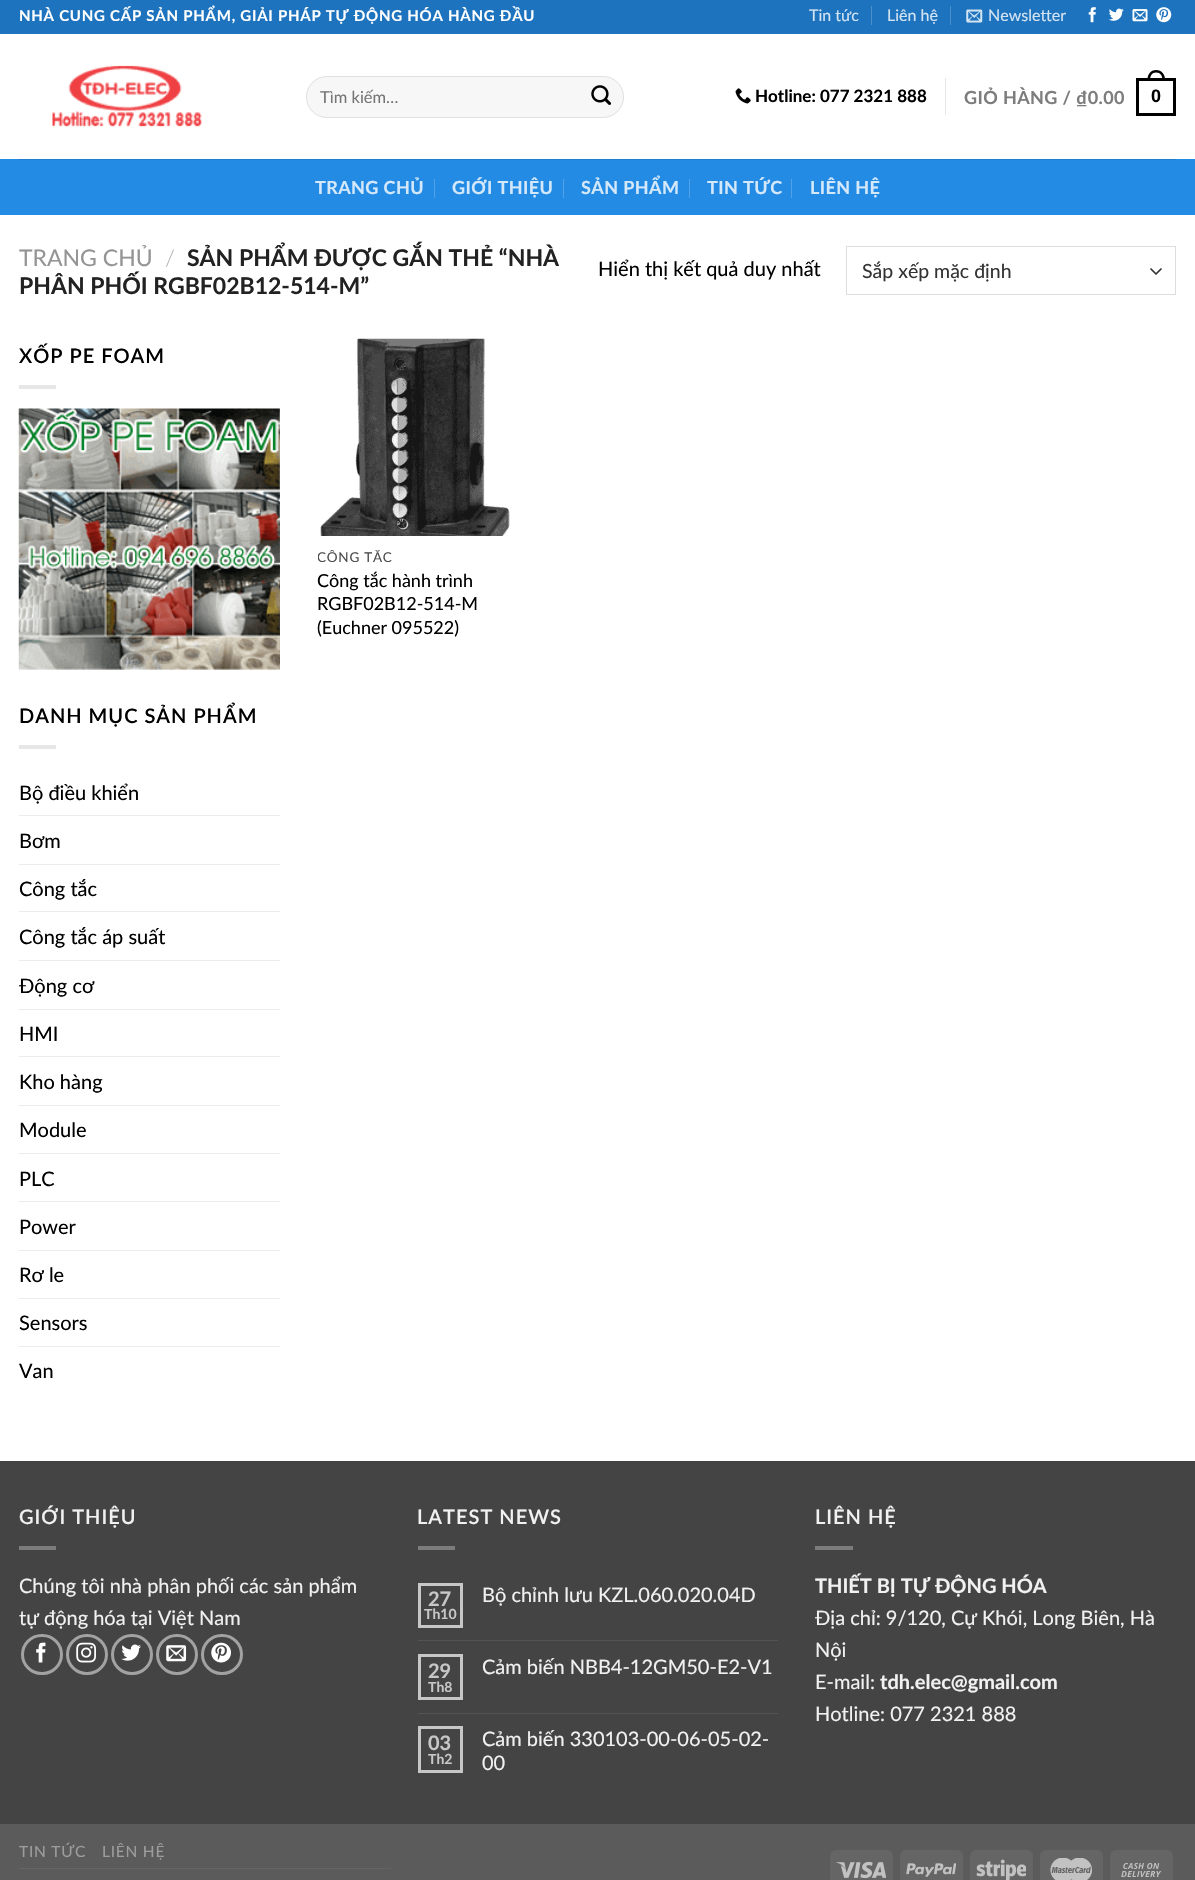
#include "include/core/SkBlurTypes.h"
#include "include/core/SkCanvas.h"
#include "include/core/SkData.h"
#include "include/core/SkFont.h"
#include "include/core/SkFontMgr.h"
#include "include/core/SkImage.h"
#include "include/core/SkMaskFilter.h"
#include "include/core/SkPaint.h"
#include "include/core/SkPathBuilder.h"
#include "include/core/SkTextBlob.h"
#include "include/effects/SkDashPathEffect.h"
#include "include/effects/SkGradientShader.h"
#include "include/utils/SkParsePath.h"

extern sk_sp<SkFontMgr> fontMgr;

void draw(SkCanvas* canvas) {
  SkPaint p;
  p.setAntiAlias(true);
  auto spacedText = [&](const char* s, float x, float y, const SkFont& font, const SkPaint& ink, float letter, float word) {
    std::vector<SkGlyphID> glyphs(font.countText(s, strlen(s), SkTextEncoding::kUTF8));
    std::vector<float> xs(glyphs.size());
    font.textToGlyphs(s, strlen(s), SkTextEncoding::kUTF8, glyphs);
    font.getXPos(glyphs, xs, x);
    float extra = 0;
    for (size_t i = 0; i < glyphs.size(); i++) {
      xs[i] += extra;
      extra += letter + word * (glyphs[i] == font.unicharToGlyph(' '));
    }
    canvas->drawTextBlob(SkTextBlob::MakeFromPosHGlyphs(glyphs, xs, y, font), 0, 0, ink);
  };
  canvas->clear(SK_ColorWHITE);
  p.setColor(SkColorSetRGB(30, 115, 190));
  canvas->drawRect(SkRect::MakeLTRB(0, 0, 1195, 34), p);
  p.setColor(SkColorSetRGB(75, 143, 203));
  canvas->drawRect(SkRect::MakeLTRB(871, 6, 872, 25), p);
  canvas->drawRect(SkRect::MakeLTRB(950, 6, 951, 25), p);
  canvas->drawImageRect(SkImages::DeferredFromEncodedData(SkData::MakeFromFileName("images/1.png")), SkRect::MakeLTRB(966, 9, 983, 23), SkSamplingOptions());
  canvas->drawImageRect(SkImages::DeferredFromEncodedData(SkData::MakeFromFileName("images/2.png")), SkRect::MakeLTRB(1088, 7, 1096, 23), SkSamplingOptions());
  canvas->drawImageRect(SkImages::DeferredFromEncodedData(SkData::MakeFromFileName("images/3.png")), SkRect::MakeLTRB(1109, 8, 1124, 21), SkSamplingOptions());
  canvas->drawImageRect(SkImages::DeferredFromEncodedData(SkData::MakeFromFileName("images/4.png")), SkRect::MakeLTRB(1132, 9, 1148, 22), SkSamplingOptions());
  canvas->drawImageRect(SkImages::DeferredFromEncodedData(SkData::MakeFromFileName("images/5.png")), SkRect::MakeLTRB(1156, 7, 1172, 23), SkSamplingOptions());
  canvas->drawImageRect(SkImages::DeferredFromEncodedData(SkData::MakeFromFileName("images/6.png")), SkRect::MakeLTRB(52, 65, 202, 127), SkSamplingOptions());
  p.setColor(SkColorSetRGB(247, 247, 247));
  canvas->drawRoundRect(SkRect::MakeLTRB(306, 76, 624, 118), 21, 21, p);
  p.setStyle(SkPaint::kStroke_Style);
  p.setStrokeWidth(1);
  p.setColor(SkColorSetARGB(23, 0, 0, 0));
  canvas->drawRoundRect(SkRect::MakeLTRB(306.5f, 76.5f, 623.5f, 117.5f), 20.5f, 20.5f, p);
  canvas->drawImageRect(SkImages::DeferredFromEncodedData(SkData::MakeFromFileName("images/7.png")), SkRect::MakeLTRB(591, 85, 611, 105), SkSamplingOptions());
  canvas->drawImageRect(SkImages::DeferredFromEncodedData(SkData::MakeFromFileName("images/8.png")), SkRect::MakeLTRB(735, 88, 751, 104), SkSamplingOptions());
  p.setStyle(SkPaint::kFill_Style);
  p.setColor(SkColorSetRGB(230, 230, 230));
  canvas->drawRect(SkRect::MakeLTRB(945, 78, 946, 115), p);
  p.setStyle(SkPaint::kStroke_Style);
  p.setStrokeWidth(3);
  p.setColor(SK_ColorBLACK);
  canvas->drawRect(SkRect::MakeLTRB(1137.5f, 79.5f, 1174.5f, 114.5f), p);
  p.setStyle(SkPaint::kFill_Style);
  canvas->drawPath(SkPathBuilder(SkPathFillType::kEvenOdd).moveTo(1156, 70).cubicTo(1162, 70, 1165, 74.5f, 1165, 80).lineTo(1147.5f, 80).cubicTo(1147.5f, 74.5f, 1150.5f, 70, 1156, 70).close().moveTo(1156, 72.5f).cubicTo(1160.5f, 72.5f, 1162.5f, 76, 1162.5f, 80).lineTo(1150, 80).cubicTo(1150, 76, 1152, 72.5f, 1156, 72.5f).close().detach(), p);
  p.setColor(SkColorSetRGB(36, 139, 229));
  canvas->drawRect(SkRect::MakeLTRB(0, 159, 1195, 215), p);
  p.setColor(SkColorSetRGB(32, 125, 206));
  canvas->drawRect(SkRect::MakeLTRB(19, 159, 1176, 160), p);
  p.setColor(SkColorSetRGB(80, 162, 234));
  canvas->drawRect(SkRect::MakeLTRB(434, 179, 435, 198), p);
  canvas->drawRect(SkRect::MakeLTRB(563, 179, 564, 198), p);
  canvas->drawRect(SkRect::MakeLTRB(689, 179, 690, 198), p);
  canvas->drawRect(SkRect::MakeLTRB(791, 179, 792, 198), p);
  p.setStyle(SkPaint::kStroke_Style);
  p.setStrokeWidth(1.7f);
  p.setStrokeCap(SkPaint::kRound_Cap);
  p.setStrokeJoin(SkPaint::kRound_Join);
  p.setColor(SkColorSetRGB(51, 51, 51));
  canvas->drawPath(SkPathBuilder().moveTo(1151, 269).lineTo(1156, 274).lineTo(1161, 269).detach(), p);
  p.setStrokeWidth(1);
  p.setStrokeCap(SkPaint::kButt_Cap);
  p.setStrokeJoin(SkPaint::kMiter_Join);
  p.setColor(SkColorSetRGB(221, 221, 221));
  canvas->drawRect(SkRect::MakeLTRB(846.5f, 246.5f, 1175.5f, 294.5f), p);
  p.setStyle(SkPaint::kFill_Style);
  p.setColor(SkColorSetRGB(230, 230, 230));
  canvas->drawRect(SkRect::MakeLTRB(19, 385, 56, 389), p);
  canvas->drawImageRect(SkImages::DeferredFromEncodedData(SkData::MakeFromFileName("images/9.png")), SkRect::MakeLTRB(18, 408, 280, 670), SkSamplingOptions());
  canvas->drawRect(SkRect::MakeLTRB(19, 745, 56, 749), p);
  p.setColor(SkColorSetRGB(236, 236, 236));
  canvas->drawRect(SkRect::MakeLTRB(19, 815, 280, 816), p);
  canvas->drawRect(SkRect::MakeLTRB(19, 864, 280, 865), p);
  canvas->drawRect(SkRect::MakeLTRB(19, 911, 280, 912), p);
  canvas->drawRect(SkRect::MakeLTRB(19, 960, 280, 961), p);
  canvas->drawRect(SkRect::MakeLTRB(19, 1009, 280, 1010), p);
  canvas->drawRect(SkRect::MakeLTRB(19, 1056, 280, 1057), p);
  canvas->drawRect(SkRect::MakeLTRB(19, 1105, 280, 1106), p);
  canvas->drawRect(SkRect::MakeLTRB(19, 1153, 280, 1154), p);
  canvas->drawRect(SkRect::MakeLTRB(19, 1201, 280, 1202), p);
  canvas->drawRect(SkRect::MakeLTRB(19, 1250, 280, 1251), p);
  canvas->drawRect(SkRect::MakeLTRB(19, 1298, 280, 1299), p);
  canvas->drawRect(SkRect::MakeLTRB(19, 1346, 280, 1347), p);
  canvas->drawImageRect(SkImages::DeferredFromEncodedData(SkData::MakeFromFileName("images/10.png")), SkRect::MakeLTRB(320, 338, 510, 536), SkSamplingOptions());
  p.setColor(SkColorSetRGB(68, 68, 68));
  canvas->drawRect(SkRect::MakeLTRB(0, 1462, 1195, 1824), p);
  p.setColor(SkColorSetRGB(65, 65, 65));
  canvas->drawRect(SkRect::MakeLTRB(0, 1461, 1195, 1462), p);
  p.setColor(SkColorSetRGB(124, 124, 124));
  canvas->drawRect(SkRect::MakeLTRB(19, 1546, 56, 1550), p);
  p.setStyle(SkPaint::kStroke_Style);
  p.setStrokeWidth(3);
  p.setColor(SkColorSetRGB(162, 162, 162));
  canvas->drawRoundRect(SkRect::MakeLTRB(22.5f, 1635.5f, 61.5f, 1673.5f), 19, 19, p);
  canvas->drawImageRect(SkImages::DeferredFromEncodedData(SkData::MakeFromFileName("images/11.png")), SkRect::MakeLTRB(36, 1642, 46, 1663), SkSamplingOptions());
  canvas->drawRoundRect(SkRect::MakeLTRB(67.5f, 1635.5f, 106.5f, 1673.5f), 19, 19, p);
  canvas->drawImageRect(SkImages::DeferredFromEncodedData(SkData::MakeFromFileName("images/12.png")), SkRect::MakeLTRB(76, 1642, 96, 1663), SkSamplingOptions());
  canvas->drawRoundRect(SkRect::MakeLTRB(112.5f, 1635.5f, 151.5f, 1673.5f), 19, 19, p);
  canvas->drawImageRect(SkImages::DeferredFromEncodedData(SkData::MakeFromFileName("images/13.png")), SkRect::MakeLTRB(121, 1644, 141, 1661), SkSamplingOptions());
  canvas->drawRoundRect(SkRect::MakeLTRB(157.5f, 1635.5f, 196.5f, 1673.5f), 19, 19, p);
  canvas->drawImageRect(SkImages::DeferredFromEncodedData(SkData::MakeFromFileName("images/14.png")), SkRect::MakeLTRB(166, 1645, 187, 1662), SkSamplingOptions());
  canvas->drawRoundRect(SkRect::MakeLTRB(202.5f, 1635.5f, 241.5f, 1673.5f), 19, 19, p);
  canvas->drawImageRect(SkImages::DeferredFromEncodedData(SkData::MakeFromFileName("images/15.png")), SkRect::MakeLTRB(211, 1642, 231, 1663), SkSamplingOptions());
  p.setStyle(SkPaint::kFill_Style);
  p.setColor(SkColorSetRGB(124, 124, 124));
  canvas->drawRect(SkRect::MakeLTRB(418, 1546, 455, 1550), p);
  p.setStyle(SkPaint::kStroke_Style);
  p.setColor(SkColorSetRGB(199, 199, 199));
  canvas->drawRect(SkRect::MakeLTRB(419.5f, 1584.5f, 461.5f, 1626.5f), p);
  p.setStyle(SkPaint::kFill_Style);
  p.setColor(SkColorSetRGB(83, 83, 83));
  canvas->drawRect(SkRect::MakeLTRB(418, 1640, 778, 1641), p);
  p.setStyle(SkPaint::kStroke_Style);
  p.setColor(SkColorSetRGB(199, 199, 199));
  canvas->drawRect(SkRect::MakeLTRB(419.5f, 1655.5f, 461.5f, 1698.5f), p);
  p.setStyle(SkPaint::kFill_Style);
  p.setColor(SkColorSetRGB(83, 83, 83));
  canvas->drawRect(SkRect::MakeLTRB(418, 1713, 778, 1714), p);
  p.setStyle(SkPaint::kStroke_Style);
  p.setColor(SkColorSetRGB(199, 199, 199));
  canvas->drawRect(SkRect::MakeLTRB(419.5f, 1727.5f, 461.5f, 1771.5f), p);
  p.setStyle(SkPaint::kFill_Style);
  p.setColor(SkColorSetRGB(124, 124, 124));
  canvas->drawRect(SkRect::MakeLTRB(815, 1546, 853, 1550), p);
  p.setColor(SkColorSetRGB(91, 91, 91));
  canvas->drawRect(SkRect::MakeLTRB(0, 1824, 1195, 1880), p);
  p.setColor(SkColorSetRGB(101, 101, 101));
  canvas->drawRect(SkRect::MakeLTRB(19, 1868, 391, 1869), p);
  canvas->drawRoundRect(SkRect::MakeLTRB(830, 1850, 893, 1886), 6, 6, p);
  canvas->drawImageRect(SkImages::DeferredFromEncodedData(SkData::MakeFromFileName("images/16.png")), SkRect::MakeLTRB(836, 1861, 886, 1879), SkSamplingOptions());
  canvas->drawRoundRect(SkRect::MakeLTRB(900, 1850, 963, 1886), 6, 6, p);
  canvas->drawImageRect(SkImages::DeferredFromEncodedData(SkData::MakeFromFileName("images/17.png")), SkRect::MakeLTRB(906, 1863, 956, 1877), SkSamplingOptions());
  canvas->drawRoundRect(SkRect::MakeLTRB(970, 1850, 1033, 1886), 6, 6, p);
  canvas->drawImageRect(SkImages::DeferredFromEncodedData(SkData::MakeFromFileName("images/18.png")), SkRect::MakeLTRB(976, 1859, 1026, 1880), SkSamplingOptions());
  canvas->drawRoundRect(SkRect::MakeLTRB(1040, 1850, 1103, 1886), 6, 6, p);
  canvas->drawImageRect(SkImages::DeferredFromEncodedData(SkData::MakeFromFileName("images/19.png")), SkRect::MakeLTRB(1050, 1858, 1092, 1880), SkSamplingOptions());
  canvas->drawRoundRect(SkRect::MakeLTRB(1110, 1850, 1173, 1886), 6, 6, p);
  canvas->drawImageRect(SkImages::DeferredFromEncodedData(SkData::MakeFromFileName("images/20.png")), SkRect::MakeLTRB(1121, 1863, 1162, 1877), SkSamplingOptions());
  SkFont font1(fontMgr->matchFamilyStyle("Lato", SkFontStyle::Bold()), 15);
  font1.setSubpixel(true);
  p.setColor(SK_ColorWHITE);
  spacedText("NHÀ CUNG CẤP SẢN PHẨM, GIẢI PHÁP TỰ ĐỘNG HÓA HÀNG ĐẦU", 19, 21, font1, p, 0.75f, 0);
  SkFont font2(fontMgr->matchFamilyStyle("Lato", SkFontStyle::Normal()), 16);
  font2.setSubpixel(true);
  p.setColor(SkColorSetRGB(210, 227, 242));
  canvas->drawString("Tin tức", 809, 21, font2, p);
  canvas->drawString("Liên hệ", 887, 21, font2, p);
  canvas->drawString("Newsletter", 988, 21, font2, p);
  SkFont font3(fontMgr->matchFamilyStyle("Lato", SkFontStyle::Normal()), 16.5f);
  font3.setSubpixel(true);
  p.setColor(SkColorSetRGB(117, 117, 117));
  canvas->drawString("Tìm kiếm…", 320, 103, font3, p);
  SkFont font4(fontMgr->matchFamilyStyle("Lato", SkFontStyle::Bold()), 17);
  font4.setSubpixel(true);
  p.setColor(SK_ColorBLACK);
  canvas->drawString("Hotline: 077 2321 888", 755, 102, font4, p);
  SkFont font5(fontMgr->matchFamilyStyle("Lato", SkFontStyle::Bold()), 18);
  font5.setSubpixel(true);
  p.setColor(SkColorSetRGB(125, 125, 125));
  spacedText("GIỎ HÀNG / ₫0.00", 964, 104, font5, p, 0.4f, 0);
  SkFont font6(fontMgr->matchFamilyStyle("Liberation Sans", SkFontStyle::Bold()), 18);
  font6.setSubpixel(true);
  p.setColor(SK_ColorBLACK);
  spacedText("0", 1151, 102, font6, p, 0.4f, 0);
  p.setColor(SkColorSetRGB(211, 232, 250));
  spacedText("TRANG CHỦ", 315, 194, font5, p, 0.4f, 0);
  spacedText("GIỚI THIỆU", 452, 194, font5, p, 0.4f, 0);
  spacedText("SẢN PHẨM", 581, 194, font5, p, 0.4f, 0);
  spacedText("TIN TỨC", 707, 194, font5, p, 0.4f, 0);
  spacedText("LIÊN HỆ", 810, 194, font5, p, 0.4f, 0);
  SkFont font7(fontMgr->matchFamilyStyle("Lato", SkFontStyle::Normal()), 23);
  font7.setSubpixel(true);
  p.setColor(SkColorSetRGB(148, 148, 148));
  canvas->drawString("TRANG CHỦ", 19, 266, font7, p);
  SkFont font8(fontMgr->matchFamilyStyle("Lato", SkFontStyle(300, SkFontStyle::kNormal_Width, SkFontStyle::kUpright_Slant)), 23);
  font8.setSubpixel(true);
  p.setColor(SkColorSetRGB(178, 178, 178));
  canvas->drawString("/", 165, 266, font8, p);
  SkFont font9(fontMgr->matchFamilyStyle("Lato", SkFontStyle::Bold()), 23);
  font9.setSubpixel(true);
  p.setColor(SkColorSetRGB(34, 34, 34));
  canvas->drawString("SẢN PHẨM ĐƯỢC GẮN THẺ “NHÀ", 187, 266, font9, p);
  canvas->drawString("PHÂN PHỐI RGBF02B12-514-M”", 19, 294, font9, p);
  SkFont font10(fontMgr->matchFamilyStyle("Lato", SkFontStyle::Normal()), 20);
  font10.setSubpixel(true);
  p.setColor(SK_ColorBLACK);
  canvas->drawString("Hiển thị kết quả duy nhất", 598, 276, font10, p);
  SkFont font11(fontMgr->matchFamilyStyle("Lato", SkFontStyle::Normal()), 19.5f);
  font11.setSubpixel(true);
  p.setColor(SkColorSetRGB(51, 51, 51));
  canvas->drawString("Sắp xếp mặc định", 862, 278, font11, p);
  SkFont font12(fontMgr->matchFamilyStyle("Lato", SkFontStyle(600, SkFontStyle::kNormal_Width, SkFontStyle::kUpright_Slant)), 20);
  font12.setSubpixel(true);
  p.setColor(SK_ColorBLACK);
  spacedText("XỐP PE FOAM", 19, 363, font12, p, 1, 0);
  spacedText("DANH MỤC SẢN PHẨM", 19, 723, font12, p, 1, 0);
  canvas->drawString("Bộ điều khiển", 19, 800, font10, p);
  canvas->drawString("Bơm", 19, 848, font10, p);
  canvas->drawString("Công tắc", 19, 896, font10, p);
  canvas->drawString("Công tắc áp suất", 19, 944, font10, p);
  canvas->drawString("Động cơ", 19, 993, font10, p);
  canvas->drawString("HMI", 19, 1041, font10, p);
  canvas->drawString("Kho hàng", 19, 1089, font10, p);
  canvas->drawString("Module", 19, 1137, font10, p);
  canvas->drawString("PLC", 19, 1186, font10, p);
  canvas->drawString("Power", 19, 1234, font10, p);
  canvas->drawString("Rơ le", 19, 1282, font10, p);
  canvas->drawString("Sensors", 19, 1330, font10, p);
  canvas->drawString("Van", 19, 1378, font10, p);
  canvas->save();
  canvas->clipRect(SkRect::MakeLTRB(318, 550, 514, 566));
  SkFont font13(fontMgr->matchFamilyStyle("Lato", SkFontStyle::Normal()), 13.5f);
  font13.setSubpixel(true);
  p.setColor(SkColorSetRGB(77, 77, 77));
  spacedText("CÔNG TẮC", 317, 562, font13, p, 0.75f, 0);
  canvas->restore();
  SkFont font14(fontMgr->matchFamilyStyle("Lato", SkFontStyle::Normal()), 18);
  font14.setSubpixel(true);
  p.setColor(SK_ColorBLACK);
  canvas->drawString("Công tắc hành trình", 317, 587, font14, p);
  canvas->drawString("RGBF02B12-514-M", 317, 610, font14, p);
  canvas->drawString("(Euchner 095522)", 317, 634, font14, p);
  p.setColor(SkColorSetRGB(241, 241, 241));
  spacedText("GIỚI THIỆU", 19, 1524, font12, p, 1, 0);
  canvas->drawString("Chúng tôi nhà phân phối các sản phẩm", 19, 1593, font10, p);
  canvas->drawString("tự động hóa tại Việt Nam", 19, 1625, font10, p);
  spacedText("LATEST NEWS", 417, 1524, font12, p, 1, 0);
  SkFont font15(fontMgr->matchFamilyStyle("Lato", SkFontStyle::Bold()), 20);
  font15.setSubpixel(true);
  p.setColor(SkColorSetRGB(199, 199, 199));
  canvas->drawString("27", 428, 1606, font15, p);
  SkFont font16(fontMgr->matchFamilyStyle("Lato", SkFontStyle::Bold()), 14);
  font16.setSubpixel(true);
  canvas->drawString("Th10", 424, 1619, font16, p);
  p.setColor(SkColorSetRGB(241, 241, 241));
  canvas->drawString("Bộ chỉnh lưu KZL.060.020.04D", 482, 1602, font10, p);
  p.setColor(SkColorSetRGB(199, 199, 199));
  canvas->drawString("29", 428, 1678, font15, p);
  canvas->drawString("Th8", 428, 1692, font16, p);
  p.setColor(SkColorSetRGB(241, 241, 241));
  canvas->drawString("Cảm biến NBB4-12GM50-E2-V1", 482, 1674, font10, p);
  p.setColor(SkColorSetRGB(199, 199, 199));
  canvas->drawString("03", 428, 1750, font15, p);
  canvas->drawString("Th2", 428, 1764, font16, p);
  p.setColor(SkColorSetRGB(241, 241, 241));
  canvas->drawString("Cảm biến 330103-00-06-05-02-", 482, 1746, font10, p);
  canvas->drawString("00", 482, 1770, font10, p);
  spacedText("LIÊN HỆ", 815, 1524, font12, p, 1, 0);
  canvas->drawString("THIẾT BỊ TỰ ĐỘNG HÓA", 815, 1593, font15, p);
  canvas->drawString("Địa chỉ: 9/120, Cự Khói, Long Biên, Hà", 815, 1625, font10, p);
  canvas->drawString("Nội", 815, 1657, font10, p);
  canvas->drawString("E-mail:", 815, 1689, font10, p);
  canvas->drawString("tdh.elec@gmail.com", 880, 1689, font15, p);
  canvas->drawString("Hotline: 077 2321 888", 815, 1721, font10, p);
  SkFont font17(fontMgr->matchFamilyStyle("Lato", SkFontStyle::Normal()), 15.5f);
  font17.setSubpixel(true);
  p.setColor(SkColorSetRGB(157, 157, 157));
  spacedText("TIN TỨC", 19, 1857, font17, p, 0.75f, 0);
  spacedText("LIÊN HỆ", 102, 1857, font17, p, 0.75f, 0);
}
